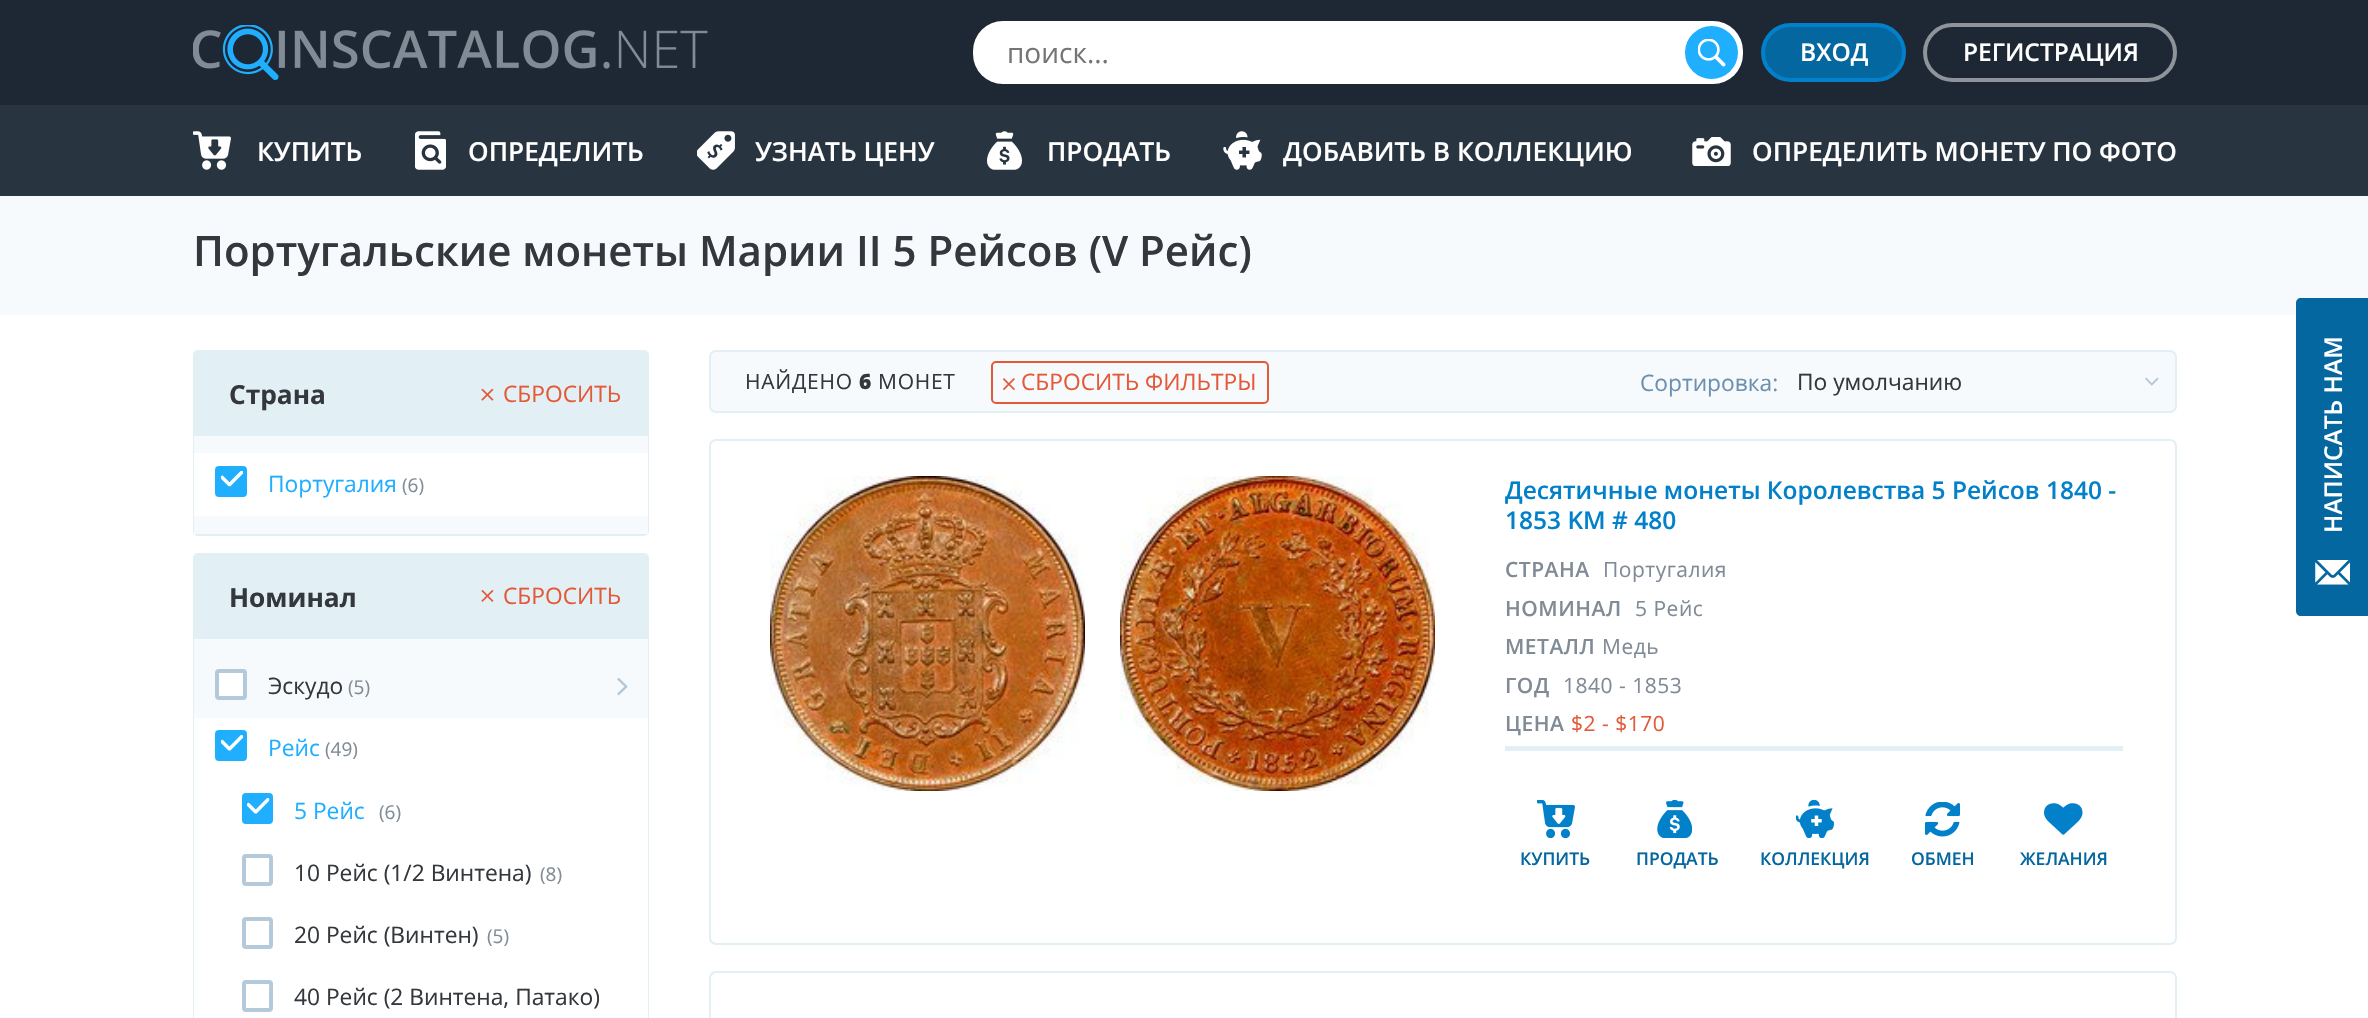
#include "include/core/SkBlurTypes.h"
#include "include/core/SkCanvas.h"
#include "include/core/SkData.h"
#include "include/core/SkFont.h"
#include "include/core/SkFontMgr.h"
#include "include/core/SkImage.h"
#include "include/core/SkMaskFilter.h"
#include "include/core/SkPaint.h"
#include "include/core/SkPathBuilder.h"
#include "include/core/SkTextBlob.h"
#include "include/effects/SkDashPathEffect.h"
#include "include/effects/SkGradientShader.h"
#include "include/utils/SkParsePath.h"

extern sk_sp<SkFontMgr> fontMgr;

void draw(SkCanvas* canvas) {
  SkPaint p;
  p.setAntiAlias(true);
  auto spacedText = [&](const char* s, float x, float y, const SkFont& font, const SkPaint& ink, float letter, float word) {
    std::vector<SkGlyphID> glyphs(font.countText(s, strlen(s), SkTextEncoding::kUTF8));
    std::vector<float> xs(glyphs.size());
    font.textToGlyphs(s, strlen(s), SkTextEncoding::kUTF8, glyphs);
    font.getXPos(glyphs, xs, x);
    float extra = 0;
    for (size_t i = 0; i < glyphs.size(); i++) {
      xs[i] += extra;
      extra += letter + word * (glyphs[i] == font.unicharToGlyph(' '));
    }
    canvas->drawTextBlob(SkTextBlob::MakeFromPosHGlyphs(glyphs, xs, y, font), 0, 0, ink);
  };
  canvas->clear(SK_ColorWHITE);
  p.setColor(SkColorSetRGB(29, 40, 52));
  canvas->drawRect(SkRect::MakeLTRB(0, 0, 2368, 105), p);
  canvas->drawImageRect(SkImages::DeferredFromEncodedData(SkData::MakeFromFileName("images/1.png")), SkRect::MakeLTRB(193, 25, 708, 80), SkSamplingOptions());
  p.setColor(SK_ColorWHITE);
  canvas->drawRoundRect(SkRect::MakeLTRB(973, 21, 1743, 84), 30, 30, p);
  p.setColor(SkColorSetRGB(32, 174, 255));
  canvas->drawCircle(1711.5f, 52.5f, 26.5f, p);
  canvas->drawImageRect(SkImages::DeferredFromEncodedData(SkData::MakeFromFileName("images/2.png")), SkRect::MakeLTRB(1698, 39, 1726, 67), SkSamplingOptions());
  p.setColor(SkColorSetRGB(4, 103, 160));
  canvas->drawRoundRect(SkRect::MakeLTRB(1763, 25, 1904, 80), 27.5f, 27.5f, p);
  p.setStyle(SkPaint::kStroke_Style);
  p.setStrokeWidth(4);
  p.setColor(SkColorSetRGB(2, 129, 202));
  canvas->drawRoundRect(SkRect::MakeLTRB(1763, 25, 1904, 80), 27.5f, 27.5f, p);
  p.setColor(SkColorSetRGB(142, 148, 154));
  canvas->drawRoundRect(SkRect::MakeLTRB(1925, 25, 2175, 80), 27.5f, 27.5f, p);
  p.setStyle(SkPaint::kFill_Style);
  p.setColor(SkColorSetRGB(40, 52, 64));
  canvas->drawRect(SkRect::MakeLTRB(0, 105, 2368, 196), p);
  canvas->drawImageRect(SkImages::DeferredFromEncodedData(SkData::MakeFromFileName("images/3.png")), SkRect::MakeLTRB(193, 131, 231, 170), SkSamplingOptions());
  canvas->drawImageRect(SkImages::DeferredFromEncodedData(SkData::MakeFromFileName("images/4.png")), SkRect::MakeLTRB(415, 131, 446, 170), SkSamplingOptions());
  canvas->drawImageRect(SkImages::DeferredFromEncodedData(SkData::MakeFromFileName("images/5.png")), SkRect::MakeLTRB(697, 131, 735, 170), SkSamplingOptions());
  canvas->drawImageRect(SkImages::DeferredFromEncodedData(SkData::MakeFromFileName("images/6.png")), SkRect::MakeLTRB(987, 131, 1022, 170), SkSamplingOptions());
  canvas->drawImageRect(SkImages::DeferredFromEncodedData(SkData::MakeFromFileName("images/7.png")), SkRect::MakeLTRB(1223, 131, 1262, 170), SkSamplingOptions());
  canvas->drawImageRect(SkImages::DeferredFromEncodedData(SkData::MakeFromFileName("images/8.png")), SkRect::MakeLTRB(1692, 137, 1731, 166), SkSamplingOptions());
  p.setColor(SkColorSetRGB(247, 250, 252));
  canvas->drawRect(SkRect::MakeLTRB(0, 196, 2368, 315), p);
  p.setStyle(SkPaint::kStroke_Style);
  p.setStrokeWidth(2);
  p.setColor(SkColorSetRGB(226, 239, 244));
  canvas->drawRoundRect(SkRect::MakeLTRB(194, 351, 648, 535), 4, 4, p);
  p.setStyle(SkPaint::kFill_Style);
  canvas->drawRect(SkRect::MakeLTRB(195, 352, 647, 436), p);
  canvas->drawImageRect(SkImages::DeferredFromEncodedData(SkData::MakeFromFileName("images/9.png")), SkRect::MakeLTRB(481, 389, 494, 401), SkSamplingOptions());
  p.setColor(SkColorSetRGB(247, 250, 252));
  canvas->drawRect(SkRect::MakeLTRB(194, 436, 648, 534), p);
  p.setColor(SK_ColorWHITE);
  canvas->drawRect(SkRect::MakeLTRB(194, 453, 648, 516), p);
  p.setColor(SkColorSetRGB(32, 174, 255));
  canvas->drawRoundRect(SkRect::MakeLTRB(217, 468, 245, 495), 2, 2, p);
  p.setStyle(SkPaint::kStroke_Style);
  p.setStrokeWidth(4);
  canvas->drawRoundRect(SkRect::MakeLTRB(217, 468, 245, 495), 2, 2, p);
  canvas->drawImageRect(SkImages::DeferredFromEncodedData(SkData::MakeFromFileName("images/10.png")), SkRect::MakeLTRB(221, 471, 243, 487), SkSamplingOptions());
  p.setStrokeWidth(2);
  p.setColor(SkColorSetRGB(226, 239, 244));
  canvas->drawRoundRect(SkRect::MakeLTRB(194, 554, 648, 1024), 4, 4, p);
  p.setStyle(SkPaint::kFill_Style);
  canvas->drawRect(SkRect::MakeLTRB(195, 555, 647, 639), p);
  canvas->drawImageRect(SkImages::DeferredFromEncodedData(SkData::MakeFromFileName("images/11.png")), SkRect::MakeLTRB(481, 590, 494, 602), SkSamplingOptions());
  p.setColor(SkColorSetRGB(247, 250, 252));
  canvas->drawRect(SkRect::MakeLTRB(194, 639, 648, 718), p);
  p.setColor(SK_ColorWHITE);
  canvas->drawRoundRect(SkRect::MakeLTRB(217, 671, 245, 698), 2, 2, p);
  p.setStyle(SkPaint::kStroke_Style);
  p.setStrokeWidth(4);
  p.setColor(SkColorSetRGB(180, 201, 217));
  canvas->drawRoundRect(SkRect::MakeLTRB(217, 671, 245, 698), 2, 2, p);
  canvas->drawImageRect(SkImages::DeferredFromEncodedData(SkData::MakeFromFileName("images/12.png")), SkRect::MakeLTRB(617, 678, 628, 696), SkSamplingOptions());
  p.setStyle(SkPaint::kFill_Style);
  p.setColor(SK_ColorWHITE);
  canvas->drawRect(SkRect::MakeLTRB(194, 718, 648, 1018), p);
  p.setColor(SkColorSetRGB(32, 174, 255));
  canvas->drawRoundRect(SkRect::MakeLTRB(217, 732, 245, 759), 2, 2, p);
  p.setStyle(SkPaint::kStroke_Style);
  canvas->drawRoundRect(SkRect::MakeLTRB(217, 732, 245, 759), 2, 2, p);
  canvas->drawImageRect(SkImages::DeferredFromEncodedData(SkData::MakeFromFileName("images/13.png")), SkRect::MakeLTRB(221, 735, 243, 751), SkSamplingOptions());
  p.setStyle(SkPaint::kFill_Style);
  canvas->drawRoundRect(SkRect::MakeLTRB(244, 795, 271, 822), 2, 2, p);
  p.setStyle(SkPaint::kStroke_Style);
  canvas->drawRoundRect(SkRect::MakeLTRB(244, 795, 271, 822), 2, 2, p);
  canvas->drawImageRect(SkImages::DeferredFromEncodedData(SkData::MakeFromFileName("images/14.png")), SkRect::MakeLTRB(247, 798, 270, 814), SkSamplingOptions());
  p.setColor(SkColorSetRGB(180, 201, 217));
  canvas->drawRoundRect(SkRect::MakeLTRB(244, 856, 271, 884), 2, 2, p);
  canvas->drawImageRect(SkImages::DeferredFromEncodedData(SkData::MakeFromFileName("images/15.png")), SkRect::MakeLTRB(269, 860, 270, 862), SkSamplingOptions());
  canvas->drawRoundRect(SkRect::MakeLTRB(244, 919, 271, 947), 2, 2, p);
  canvas->drawImageRect(SkImages::DeferredFromEncodedData(SkData::MakeFromFileName("images/15.png")), SkRect::MakeLTRB(269, 923, 270, 925), SkSamplingOptions());
  canvas->drawRoundRect(SkRect::MakeLTRB(244, 982, 271, 1010), 2, 2, p);
  canvas->drawImageRect(SkImages::DeferredFromEncodedData(SkData::MakeFromFileName("images/15.png")), SkRect::MakeLTRB(269, 986, 270, 988), SkSamplingOptions());
  p.setStyle(SkPaint::kFill_Style);
  p.setColor(SkColorSetRGB(247, 250, 252));
  canvas->drawRoundRect(SkRect::MakeLTRB(710, 351, 2176, 412), 6, 6, p);
  p.setStyle(SkPaint::kStroke_Style);
  p.setStrokeWidth(2);
  p.setColor(SkColorSetRGB(226, 239, 244));
  canvas->drawRoundRect(SkRect::MakeLTRB(710, 351, 2176, 412), 6, 6, p);
  p.setColor(SkColorSetRGB(228, 89, 56));
  canvas->drawRoundRect(SkRect::MakeLTRB(992, 362, 1268, 403), 4, 4, p);
  canvas->drawImageRect(SkImages::DeferredFromEncodedData(SkData::MakeFromFileName("images/16.png")), SkRect::MakeLTRB(1003, 378, 1015, 390), SkSamplingOptions());
  canvas->drawImageRect(SkImages::DeferredFromEncodedData(SkData::MakeFromFileName("images/17.png")), SkRect::MakeLTRB(2145, 377, 2159, 386), SkSamplingOptions());
  p.setColor(SkColorSetRGB(226, 239, 244));
  canvas->drawRoundRect(SkRect::MakeLTRB(710, 440, 2176, 944), 6, 6, p);
  canvas->drawImageRect(SkImages::DeferredFromEncodedData(SkData::MakeFromFileName("images/18.png")), SkRect::MakeLTRB(770, 476, 1085, 791), SkSamplingOptions());
  canvas->drawImageRect(SkImages::DeferredFromEncodedData(SkData::MakeFromFileName("images/19.png")), SkRect::MakeLTRB(1120, 476, 1435, 791), SkSamplingOptions());
  p.setStyle(SkPaint::kFill_Style);
  canvas->drawRect(SkRect::MakeLTRB(1505, 746, 2123, 751), p);
  canvas->drawImageRect(SkImages::DeferredFromEncodedData(SkData::MakeFromFileName("images/20.png")), SkRect::MakeLTRB(1537, 800, 1575, 838), SkSamplingOptions());
  canvas->drawImageRect(SkImages::DeferredFromEncodedData(SkData::MakeFromFileName("images/21.png")), SkRect::MakeLTRB(1657, 800, 1692, 838), SkSamplingOptions());
  canvas->drawImageRect(SkImages::DeferredFromEncodedData(SkData::MakeFromFileName("images/22.png")), SkRect::MakeLTRB(1796, 800, 1834, 838), SkSamplingOptions());
  canvas->drawImageRect(SkImages::DeferredFromEncodedData(SkData::MakeFromFileName("images/23.png")), SkRect::MakeLTRB(1925, 802, 1960, 837), SkSamplingOptions());
  canvas->drawImageRect(SkImages::DeferredFromEncodedData(SkData::MakeFromFileName("images/24.png")), SkRect::MakeLTRB(2044, 803, 2083, 835), SkSamplingOptions());
  p.setStyle(SkPaint::kStroke_Style);
  canvas->drawRoundRect(SkRect::MakeLTRB(710, 972, 2176, 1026), 6, 6, p);
  p.setStyle(SkPaint::kFill_Style);
  p.setColor(SkColorSetRGB(4, 103, 160));
  canvas->drawPath(SkPathBuilder().moveTo(2301, 298).lineTo(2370, 298).lineTo(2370, 616).lineTo(2301, 616).cubicTo(2298, 616, 2296, 614, 2296, 611).lineTo(2296, 303).cubicTo(2296, 300, 2298, 298, 2301, 298).close().detach(), p);
  canvas->drawImageRect(SkImages::DeferredFromEncodedData(SkData::MakeFromFileName("images/25.png")), SkRect::MakeLTRB(2315, 560, 2350, 585), SkSamplingOptions());
  SkFont font1(fontMgr->matchFamilyStyle("Open Sans", SkFontStyle::Normal()), 28);
  font1.setSubpixel(true);
  p.setColor(SkColorSetRGB(117, 117, 117));
  canvas->drawString("поиск...", 1007, 63, font1, p);
  SkFont font2(fontMgr->matchFamilyStyle("Open Sans", SkFontStyle(600, SkFontStyle::kNormal_Width, SkFontStyle::kUpright_Slant)), 24.5f);
  font2.setSubpixel(true);
  p.setColor(SK_ColorWHITE);
  canvas->drawString("ВХОД", 1800, 61, font2, p);
  canvas->drawString("РЕГИСТРАЦИЯ", 1963, 61, font2, p);
  SkFont font3(fontMgr->matchFamilyStyle("Open Sans", SkFontStyle(600, SkFontStyle::kNormal_Width, SkFontStyle::kUpright_Slant)), 26.25f);
  font3.setSubpixel(true);
  canvas->drawString("КУПИТЬ", 257, 161, font3, p);
  canvas->drawString("ОПРЕДЕЛИТЬ", 468, 161, font3, p);
  canvas->drawString("УЗНАТЬ ЦЕНУ", 755, 161, font3, p);
  canvas->drawString("ПРОДАТЬ", 1047, 161, font3, p);
  canvas->drawString("ДОБАВИТЬ В КОЛЛЕКЦИЮ", 1283, 161, font3, p);
  canvas->drawString("ОПРЕДЕЛИТЬ МОНЕТУ ПО ФОТО", 1752, 161, font3, p);
  SkFont font4(fontMgr->matchFamilyStyle("Open Sans", SkFontStyle(600, SkFontStyle::kNormal_Width, SkFontStyle::kUpright_Slant)), 42);
  font4.setSubpixel(true);
  p.setColor(SkColorSetRGB(52, 56, 60));
  canvas->drawString("Португальские монеты Марии II 5 Рейсов (V Рейс)", 193, 266, font4, p);
  SkFont font5(fontMgr->matchFamilyStyle("Open Sans", SkFontStyle::Bold()), 26.25f);
  font5.setSubpixel(true);
  canvas->drawString("Страна", 229, 404, font5, p);
  SkFont font6(fontMgr->matchFamilyStyle("Open Sans", SkFontStyle::Normal()), 22.75f);
  font6.setSubpixel(true);
  p.setColor(SkColorSetRGB(228, 89, 56));
  canvas->drawString("СБРОСИТЬ", 503, 402, font6, p);
  p.setColor(SkColorSetRGB(32, 174, 255));
  canvas->drawString("Португалия", 268, 492, font6, p);
  SkFont font7(fontMgr->matchFamilyStyle("Open Sans", SkFontStyle::Normal()), 19);
  font7.setSubpixel(true);
  p.setColor(SkColorSetRGB(128, 139, 150));
  canvas->drawString("(6)", 402, 492, font7, p);
  p.setColor(SkColorSetRGB(52, 56, 60));
  canvas->drawString("Номинал", 229, 607, font5, p);
  p.setColor(SkColorSetRGB(228, 89, 56));
  canvas->drawString("СБРОСИТЬ", 503, 604, font6, p);
  p.setColor(SkColorSetRGB(52, 56, 60));
  canvas->drawString("Эскудо", 268, 694, font6, p);
  p.setColor(SkColorSetRGB(128, 139, 150));
  canvas->drawString("(5)", 348, 694, font7, p);
  p.setColor(SkColorSetRGB(32, 174, 255));
  canvas->drawString("Рейс", 268, 756, font6, p);
  p.setColor(SkColorSetRGB(128, 139, 150));
  canvas->drawString("(49)", 325, 756, font7, p);
  p.setColor(SkColorSetRGB(32, 174, 255));
  canvas->drawString("5 Рейс", 294, 819, font6, p);
  p.setColor(SkColorSetRGB(128, 139, 150));
  canvas->drawString("(6)", 379, 819, font7, p);
  p.setColor(SkColorSetRGB(52, 56, 60));
  canvas->drawString("10 Рейс (1/2 Винтена)", 294, 881, font6, p);
  p.setColor(SkColorSetRGB(128, 139, 150));
  canvas->drawString("(8)", 540, 881, font7, p);
  p.setColor(SkColorSetRGB(52, 56, 60));
  canvas->drawString("20 Рейс (Винтен)", 294, 943, font6, p);
  p.setColor(SkColorSetRGB(128, 139, 150));
  canvas->drawString("(5)", 487, 943, font7, p);
  p.setColor(SkColorSetRGB(52, 56, 60));
  canvas->drawString("40 Рейс (2 Винтена, Патако)", 294, 1005, font6, p);
  SkFont font8(fontMgr->matchFamilyStyle("Open Sans", SkFontStyle::Normal()), 21);
  font8.setSubpixel(true);
  spacedText("НАЙДЕНО", 745, 389, font8, p, 0.75f, 0);
  SkFont font9(fontMgr->matchFamilyStyle("Open Sans", SkFontStyle(800, SkFontStyle::kNormal_Width, SkFontStyle::kUpright_Slant)), 21);
  font9.setSubpixel(true);
  spacedText("6", 859, 389, font9, p, 0.75f, 0);
  spacedText("МОНЕТ", 878, 389, font8, p, 0.75f, 0);
  p.setColor(SkColorSetRGB(228, 89, 56));
  canvas->drawString("СБРОСИТЬ ФИЛЬТРЫ", 1021, 390, font6, p);
  p.setColor(SkColorSetRGB(108, 145, 176));
  canvas->drawString("Cортировка:", 1640, 391, font6, p);
  p.setColor(SkColorSetRGB(52, 56, 60));
  canvas->drawString("По умолчанию", 1797, 390, font6, p);
  p.setColor(SkColorSetRGB(2, 129, 202));
  canvas->drawString("Десятичные монеты Королевства 5 Рейсов 1840 -", 1505, 499, font2, p);
  canvas->drawString("1853 KM # 480", 1505, 529, font2, p);
  SkFont font10(fontMgr->matchFamilyStyle("Open Sans", SkFontStyle(600, SkFontStyle::kNormal_Width, SkFontStyle::kUpright_Slant)), 21);
  font10.setSubpixel(true);
  p.setColor(SkColorSetRGB(128, 139, 150));
  spacedText("СТРАНА", 1505, 577, font10, p, 0.5f, 0);
  spacedText("Португалия", 1603, 577, font8, p, 0.5f, 0);
  spacedText("НОМИНАЛ", 1505, 616, font10, p, 0.5f, 0);
  spacedText("5 Рейс", 1635, 616, font8, p, 0.5f, 0);
  spacedText("МЕТАЛЛ", 1505, 654, font10, p, 0.5f, 0);
  spacedText("Медь", 1602, 654, font8, p, 0.5f, 0);
  spacedText("ГОД", 1505, 693, font10, p, 0.5f, 0);
  spacedText("1840 - 1853", 1563, 693, font8, p, 0.5f, 0);
  spacedText("ЦЕНА", 1505, 731, font10, p, 0.5f, 0);
  p.setColor(SkColorSetRGB(228, 89, 56));
  spacedText("$2 - $170", 1571, 731, font8, p, 0.5f, 0);
  SkFont font11(fontMgr->matchFamilyStyle("Open Sans", SkFontStyle(600, SkFontStyle::kNormal_Width, SkFontStyle::kUpright_Slant)), 17.5f);
  font11.setSubpixel(true);
  p.setColor(SkColorSetRGB(4, 103, 160));
  canvas->drawString("КУПИТЬ", 1520, 865, font11, p);
  canvas->drawString("ПРОДАТЬ", 1636, 865, font11, p);
  canvas->drawString("КОЛЛЕКЦИЯ", 1760, 865, font11, p);
  canvas->drawString("ОБМЕН", 1911, 865, font11, p);
  canvas->drawString("ЖЕЛАНИЯ", 2020, 865, font11, p);
  p.setColor(SK_ColorWHITE);
  canvas->save();
  canvas->rotate(-90, 2342, 533);
  canvas->drawString("НАПИСАТЬ НАМ", 2342, 533, font2, p);
  canvas->restore();
}
